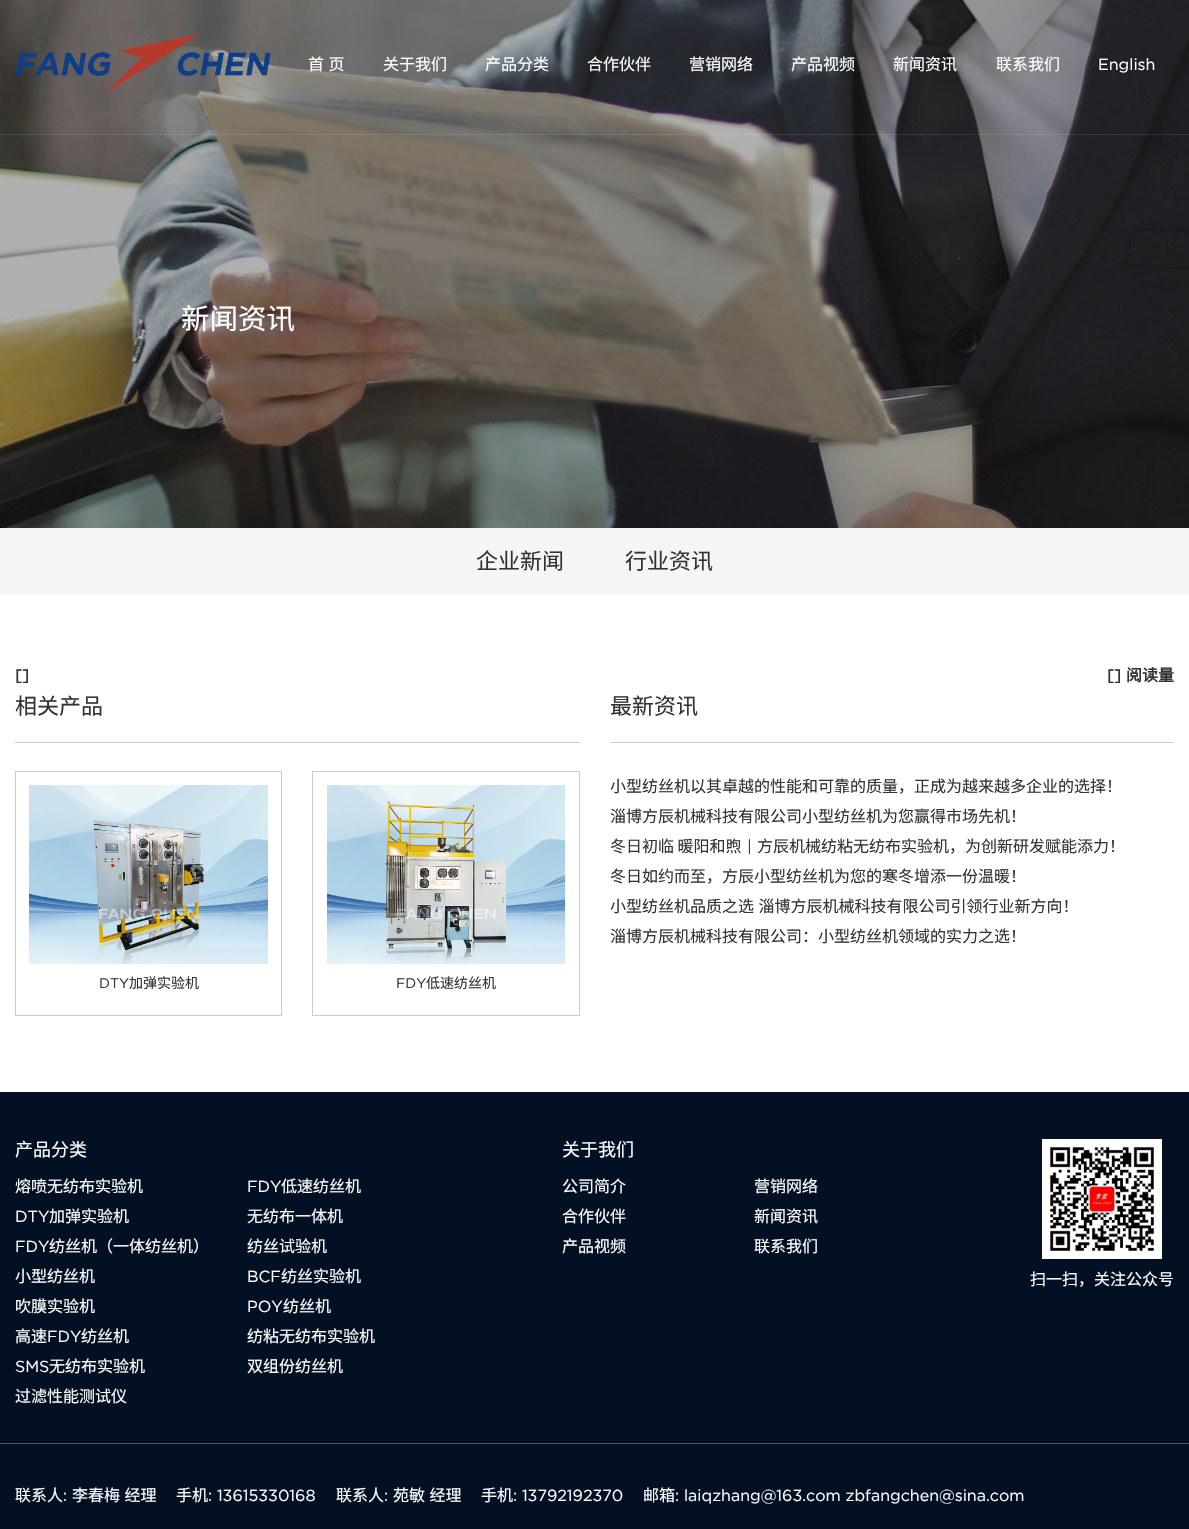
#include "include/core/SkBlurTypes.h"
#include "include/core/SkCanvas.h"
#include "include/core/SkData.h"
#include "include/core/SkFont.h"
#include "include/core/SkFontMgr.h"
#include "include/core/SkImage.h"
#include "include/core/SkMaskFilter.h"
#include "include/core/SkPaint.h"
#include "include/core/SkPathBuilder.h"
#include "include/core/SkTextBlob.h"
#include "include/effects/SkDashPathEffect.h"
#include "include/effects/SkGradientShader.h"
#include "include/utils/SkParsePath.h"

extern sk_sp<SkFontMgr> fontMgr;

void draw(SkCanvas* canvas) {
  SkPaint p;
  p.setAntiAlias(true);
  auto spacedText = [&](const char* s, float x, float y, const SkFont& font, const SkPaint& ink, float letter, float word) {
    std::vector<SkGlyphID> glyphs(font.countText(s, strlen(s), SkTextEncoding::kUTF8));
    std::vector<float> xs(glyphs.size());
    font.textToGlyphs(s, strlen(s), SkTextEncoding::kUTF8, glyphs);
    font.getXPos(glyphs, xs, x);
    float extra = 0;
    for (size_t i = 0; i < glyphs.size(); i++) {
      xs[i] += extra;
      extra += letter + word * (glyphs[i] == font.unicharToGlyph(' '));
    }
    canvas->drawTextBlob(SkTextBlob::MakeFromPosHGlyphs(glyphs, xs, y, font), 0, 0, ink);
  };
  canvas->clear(SK_ColorWHITE);
  canvas->drawImageRect(SkImages::DeferredFromEncodedData(SkData::MakeFromFileName("images/2.png")), SkRect::MakeLTRB(0, 0, 1189, 528), SkSamplingOptions());
  p.setColor(SkColorSetARGB(26, 255, 255, 255));
  canvas->drawRect(SkRect::MakeLTRB(0, 134, 1189, 135), p);
  canvas->drawImageRect(SkImages::DeferredFromEncodedData(SkData::MakeFromFileName("images/1.png")), SkRect::MakeLTRB(15, 33, 271, 94), SkSamplingOptions());
  p.setColor(SkColorSetRGB(245, 245, 245));
  canvas->drawRect(SkRect::MakeLTRB(0, 528, 1189, 594), p);
  p.setColor(SkColorSetRGB(204, 204, 204));
  canvas->drawRect(SkRect::MakeLTRB(15, 742, 580, 743), p);
  p.setStyle(SkPaint::kStroke_Style);
  p.setStrokeWidth(1);
  canvas->drawRect(SkRect::MakeLTRB(15.5f, 771.5f, 281.5f, 1015.5f), p);
  canvas->drawImageRect(SkImages::DeferredFromEncodedData(SkData::MakeFromFileName("images/3.png")), SkRect::MakeLTRB(29, 785, 268, 964), SkSamplingOptions());
  canvas->drawRect(SkRect::MakeLTRB(312.5f, 771.5f, 579.5f, 1015.5f), p);
  canvas->drawImageRect(SkImages::DeferredFromEncodedData(SkData::MakeFromFileName("images/4.png")), SkRect::MakeLTRB(327, 785, 565, 964), SkSamplingOptions());
  p.setStyle(SkPaint::kFill_Style);
  canvas->drawRect(SkRect::MakeLTRB(610, 742, 1174, 743), p);
  p.setColor(SkColorSetRGB(3, 16, 35));
  canvas->drawRect(SkRect::MakeLTRB(0, 1092, 1189, 1529), p);
  canvas->drawImageRect(SkImages::DeferredFromEncodedData(SkData::MakeFromFileName("images/5.png")), SkRect::MakeLTRB(1042, 1139, 1162, 1259), SkSamplingOptions());
  p.setColor(SkColorSetRGB(88, 88, 88));
  canvas->drawRect(SkRect::MakeLTRB(0, 1443, 1189, 1444), p);
  SkFont font1(fontMgr->matchFamilyStyle("Noto Sans CJK SC", SkFontStyle::Normal()), 16);
  font1.setSubpixel(true);
  p.setColor(SK_ColorWHITE);
  spacedText("首 页", 308, 70, font1, p, 0, 1);
  canvas->drawString("关于我们", 383, 70, font1, p);
  canvas->drawString("产品分类", 485, 70, font1, p);
  canvas->drawString("合作伙伴", 587, 70, font1, p);
  canvas->drawString("营销网络", 689, 70, font1, p);
  canvas->drawString("产品视频", 791, 70, font1, p);
  canvas->drawString("新闻资讯", 893, 70, font1, p);
  canvas->drawString("联系我们", 996, 70, font1, p);
  SkFont font2(fontMgr->matchFamilyStyle("Gotham", SkFontStyle::Normal()), 16);
  font2.setSubpixel(true);
  canvas->drawString("English", 1098, 70, font2, p);
  SkFont font3(fontMgr->matchFamilyStyle("Noto Sans CJK SC", SkFontStyle::Normal()), 28.5f);
  font3.setSubpixel(true);
  canvas->drawString("新闻资讯", 181, 329, font3, p);
  SkFont font4(fontMgr->matchFamilyStyle("Noto Sans CJK SC", SkFontStyle::Normal()), 22);
  font4.setSubpixel(true);
  p.setColor(SkColorSetRGB(50, 51, 51));
  canvas->drawString("企业新闻", 476, 569, font4, p);
  canvas->drawString("行业资讯", 625, 569, font4, p);
  SkFont font5(fontMgr->matchFamilyStyle("Gotham", SkFontStyle::Bold()), 16);
  font5.setSubpixel(true);
  canvas->drawString("[]", 15, 681, font5, p);
  canvas->drawString("[]", 1107, 681, font5, p);
  SkFont font6(fontMgr->matchFamilyStyle("Noto Sans CJK SC", SkFontStyle::Bold()), 16);
  font6.setSubpixel(true);
  canvas->drawString("阅读量", 1126, 681, font6, p);
  canvas->drawString("相关产品", 15, 714, font4, p);
  SkFont font7(fontMgr->matchFamilyStyle("Gotham", SkFontStyle::Normal()), 14);
  font7.setSubpixel(true);
  canvas->drawString("DTY", 99, 988, font7, p);
  SkFont font8(fontMgr->matchFamilyStyle("Noto Sans CJK SC", SkFontStyle::Normal()), 14);
  font8.setSubpixel(true);
  canvas->drawString("加弹实验机", 129, 988, font8, p);
  canvas->drawString("FDY", 396, 988, font7, p);
  canvas->drawString("低速纺丝机", 426, 988, font8, p);
  canvas->drawString("最新资讯", 610, 714, font4, p);
  canvas->drawString("小型纺丝机以其卓越的性能和可靠的质量，正成为越来越多企业的选择！", 610, 792, font1, p);
  canvas->drawString("淄博方辰机械科技有限公司小型纺丝机为您赢得市场先机！", 610, 822, font1, p);
  canvas->drawString("冬日初临 暖阳和煦", 610, 852, font1, p);
  canvas->drawString("|", 747, 852, font2, p);
  canvas->drawString("方辰机械纺粘无纺布实验机，为创新研发赋能添力！", 757, 852, font1, p);
  canvas->drawString("冬日如约而至，方辰小型纺丝机为您的寒冬增添一份温暖！", 610, 882, font1, p);
  spacedText("小型纺丝机品质之选 淄博方辰机械科技有限公司引领行业新方向！", 610, 912, font1, p, 0, 1);
  canvas->drawString("淄博方辰机械科技有限公司：小型纺丝机领域的实力之选！", 610, 942, font1, p);
  SkFont font9(fontMgr->matchFamilyStyle("Noto Sans CJK SC", SkFontStyle::Normal()), 18);
  font9.setSubpixel(true);
  p.setColor(SK_ColorWHITE);
  canvas->drawString("产品分类", 15, 1156, font9, p);
  canvas->drawString("熔喷无纺布实验机", 15, 1192, font1, p);
  canvas->drawString("FDY", 247, 1192, font2, p);
  canvas->drawString("低速纺丝机", 281, 1192, font1, p);
  canvas->drawString("DTY", 15, 1222, font2, p);
  canvas->drawString("加弹实验机", 49, 1222, font1, p);
  canvas->drawString("无纺布一体机", 247, 1222, font1, p);
  canvas->drawString("FDY", 15, 1252, font2, p);
  canvas->drawString("纺丝机（一体纺丝机）", 49, 1252, font1, p);
  canvas->drawString("纺丝试验机", 247, 1252, font1, p);
  canvas->drawString("小型纺丝机", 15, 1282, font1, p);
  canvas->drawString("BCF", 247, 1282, font2, p);
  canvas->drawString("纺丝实验机", 281, 1282, font1, p);
  canvas->drawString("吹膜实验机", 15, 1312, font1, p);
  canvas->drawString("POY", 247, 1312, font2, p);
  canvas->drawString("纺丝机", 283, 1312, font1, p);
  canvas->drawString("高速", 15, 1342, font1, p);
  canvas->drawString("FDY", 47, 1342, font2, p);
  canvas->drawString("纺丝机", 81, 1342, font1, p);
  canvas->drawString("纺粘无纺布实验机", 247, 1342, font1, p);
  canvas->drawString("SMS", 15, 1372, font2, p);
  canvas->drawString("无纺布实验机", 49, 1372, font1, p);
  canvas->drawString("双组份纺丝机", 247, 1372, font1, p);
  canvas->drawString("过滤性能测试仪", 15, 1402, font1, p);
  canvas->drawString("关于我们", 562, 1156, font9, p);
  canvas->drawString("公司简介", 562, 1192, font1, p);
  canvas->drawString("营销网络", 754, 1192, font1, p);
  canvas->drawString("合作伙伴", 562, 1222, font1, p);
  canvas->drawString("新闻资讯", 754, 1222, font1, p);
  canvas->drawString("产品视频", 562, 1252, font1, p);
  canvas->drawString("联系我们", 754, 1252, font1, p);
  canvas->drawString("扫一扫，关注公众号", 1030, 1285, font1, p);
  canvas->drawString("联系人", 15, 1501, font1, p);
  canvas->drawString(":", 63, 1501, font2, p);
  spacedText("李春梅 经理", 72, 1501, font1, p, 0, 1);
  canvas->drawString("手机", 176, 1501, font1, p);
  canvas->drawString(": 13615330168", 208, 1501, font2, p);
  canvas->drawString("联系人", 336, 1501, font1, p);
  canvas->drawString(":", 384, 1501, font2, p);
  spacedText("苑敏 经理", 393, 1501, font1, p, 0, 1);
  canvas->drawString("手机", 481, 1501, font1, p);
  canvas->drawString(": 13792192370", 513, 1501, font2, p);
  canvas->drawString("邮箱", 643, 1501, font1, p);
  canvas->drawString(": laiqzhang@163.com zbfangchen@sina.com", 675, 1501, font2, p);
}
